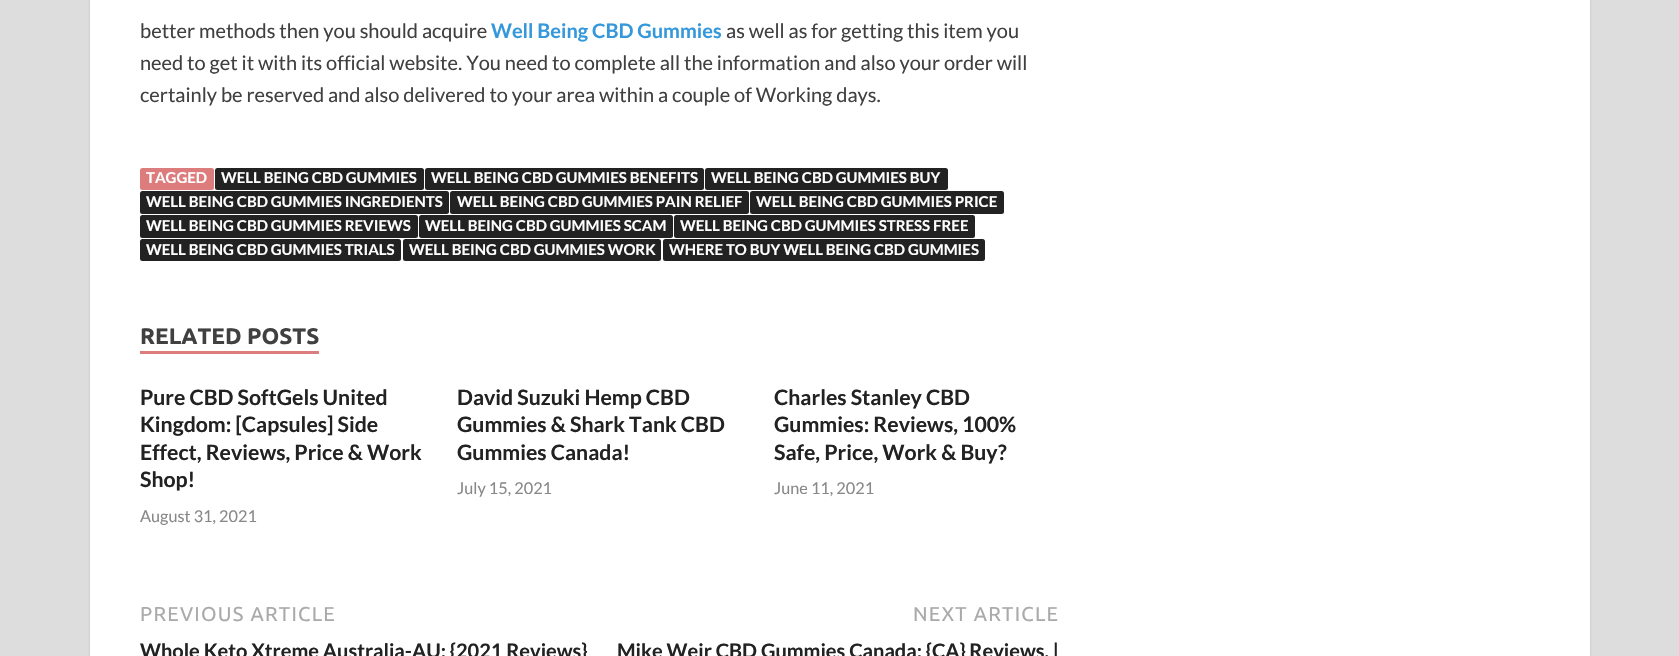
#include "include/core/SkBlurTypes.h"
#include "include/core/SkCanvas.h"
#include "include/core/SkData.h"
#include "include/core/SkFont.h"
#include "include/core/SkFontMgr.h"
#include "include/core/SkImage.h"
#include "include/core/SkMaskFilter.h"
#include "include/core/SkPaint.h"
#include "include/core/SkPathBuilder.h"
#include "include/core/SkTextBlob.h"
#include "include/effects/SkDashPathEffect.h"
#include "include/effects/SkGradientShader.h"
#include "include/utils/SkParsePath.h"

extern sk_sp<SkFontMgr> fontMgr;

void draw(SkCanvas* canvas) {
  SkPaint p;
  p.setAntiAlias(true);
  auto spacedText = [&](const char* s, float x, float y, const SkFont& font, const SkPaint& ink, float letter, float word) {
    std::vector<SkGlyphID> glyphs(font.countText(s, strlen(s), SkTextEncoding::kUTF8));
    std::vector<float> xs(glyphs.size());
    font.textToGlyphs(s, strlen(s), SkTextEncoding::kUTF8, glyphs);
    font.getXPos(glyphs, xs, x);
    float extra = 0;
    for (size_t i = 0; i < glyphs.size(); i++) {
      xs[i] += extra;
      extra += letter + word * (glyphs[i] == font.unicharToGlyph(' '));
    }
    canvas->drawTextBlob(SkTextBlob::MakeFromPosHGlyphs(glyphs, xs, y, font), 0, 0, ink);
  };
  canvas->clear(SkColorSetRGB(221, 221, 221));
  p.setColor(SkColorSetRGB(187, 187, 187));
  p.setMaskFilter(SkMaskFilter::MakeBlur(kNormal_SkBlurStyle, 1));
  canvas->drawRect(SkRect::MakeLTRB(90, -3, 1590, 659), p);
  p.setMaskFilter(nullptr);
  p.setColor(SK_ColorWHITE);
  canvas->drawRect(SkRect::MakeLTRB(90, 0, 1590, 656), p);
  p.setColor(SkColorSetRGB(221, 124, 124));
  canvas->drawRoundRect(SkRect::MakeLTRB(140, 168, 214, 190), 2.5f, 2.5f, p);
  p.setColor(SkColorSetRGB(34, 34, 34));
  canvas->drawRoundRect(SkRect::MakeLTRB(215, 168, 424, 190), 2.5f, 2.5f, p);
  canvas->drawRoundRect(SkRect::MakeLTRB(425, 168, 704, 190), 2.5f, 2.5f, p);
  canvas->drawRoundRect(SkRect::MakeLTRB(705, 168, 948, 190), 2.5f, 2.5f, p);
  canvas->drawRoundRect(SkRect::MakeLTRB(140, 191, 449, 214), 2.5f, 2.5f, p);
  canvas->drawRoundRect(SkRect::MakeLTRB(450, 191, 749, 214), 2.5f, 2.5f, p);
  canvas->drawRoundRect(SkRect::MakeLTRB(750, 191, 1004, 214), 2.5f, 2.5f, p);
  canvas->drawRoundRect(SkRect::MakeLTRB(140, 215, 418, 238), 2.5f, 2.5f, p);
  canvas->drawRoundRect(SkRect::MakeLTRB(419, 215, 673, 238), 2.5f, 2.5f, p);
  canvas->drawRoundRect(SkRect::MakeLTRB(674, 215, 975, 238), 2.5f, 2.5f, p);
  canvas->drawRoundRect(SkRect::MakeLTRB(140, 239, 401, 261), 2.5f, 2.5f, p);
  canvas->drawRoundRect(SkRect::MakeLTRB(403, 239, 661, 261), 2.5f, 2.5f, p);
  canvas->drawRoundRect(SkRect::MakeLTRB(663, 239, 985, 261), 2.5f, 2.5f, p);
  p.setColor(SkColorSetRGB(221, 124, 124));
  canvas->drawRect(SkRect::MakeLTRB(140, 351, 319, 354), p);
  SkFont font1(fontMgr->matchFamilyStyle("Lato", SkFontStyle::Normal()), 20);
  font1.setSubpixel(true);
  p.setColor(SkColorSetRGB(64, 64, 64));
  canvas->drawString("better methods then you should acquire", 140, 38, font1, p);
  SkFont font2(fontMgr->matchFamilyStyle("Lato", SkFontStyle::Bold()), 20);
  font2.setSubpixel(true);
  p.setColor(SkColorSetRGB(52, 152, 219));
  canvas->drawString("Well Being CBD Gummies", 491, 38, font2, p);
  p.setColor(SkColorSetRGB(64, 64, 64));
  canvas->drawString("as well as for getting this item you", 726, 38, font1, p);
  canvas->drawString("need to get it with its official website. You need to complete all the information and also your order will", 140, 70, font1, p);
  canvas->drawString("certainly be reserved and also delivered to your area within a couple of Working days.", 140, 102, font1, p);
  SkFont font3(fontMgr->matchFamilyStyle("Lato", SkFontStyle::Bold()), 15);
  font3.setSubpixel(true);
  p.setColor(SK_ColorWHITE);
  canvas->drawString("TAGGED", 146, 183, font3, p);
  canvas->drawString("WELL BEING CBD GUMMIES", 221, 183, font3, p);
  canvas->drawString("WELL BEING CBD GUMMIES BENEFITS", 431, 183, font3, p);
  canvas->drawString("WELL BEING CBD GUMMIES BUY", 711, 183, font3, p);
  canvas->drawString("WELL BEING CBD GUMMIES INGREDIENTS", 146, 207, font3, p);
  canvas->drawString("WELL BEING CBD GUMMIES PAIN RELIEF", 457, 207, font3, p);
  canvas->drawString("WELL BEING CBD GUMMIES PRICE", 756, 207, font3, p);
  canvas->drawString("WELL BEING CBD GUMMIES REVIEWS", 146, 231, font3, p);
  canvas->drawString("WELL BEING CBD GUMMIES SCAM", 425, 231, font3, p);
  canvas->drawString("WELL BEING CBD GUMMIES STRESS FREE", 680, 231, font3, p);
  canvas->drawString("WELL BEING CBD GUMMIES TRIALS", 146, 255, font3, p);
  canvas->drawString("WELL BEING CBD GUMMIES WORK", 409, 255, font3, p);
  canvas->drawString("WHERE TO BUY WELL BEING CBD GUMMIES", 669, 255, font3, p);
  SkFont font4(fontMgr->matchFamilyStyle("Ubuntu", SkFontStyle::Bold()), 22.5f);
  font4.setSubpixel(true);
  p.setColor(SkColorSetRGB(64, 64, 64));
  canvas->drawString("RELATED POSTS", 140, 344, font4, p);
  SkFont font5(fontMgr->matchFamilyStyle("Lato", SkFontStyle::Bold()), 21.25f);
  font5.setSubpixel(true);
  p.setColor(SkColorSetRGB(34, 34, 34));
  canvas->drawString("Pure CBD SoftGels United", 140, 405, font5, p);
  canvas->drawString("Kingdom: [Capsules] Side", 140, 432, font5, p);
  canvas->drawString("Effect, Reviews, Price & Work", 140, 460, font5, p);
  canvas->drawString("Shop!", 140, 487, font5, p);
  SkFont font6(fontMgr->matchFamilyStyle("Lato", SkFontStyle::Normal()), 16.25f);
  font6.setSubpixel(true);
  p.setColor(SkColorSetRGB(136, 136, 136));
  canvas->drawString("August 31, 2021", 140, 522, font6, p);
  p.setColor(SkColorSetRGB(34, 34, 34));
  canvas->drawString("David Suzuki Hemp CBD", 457, 405, font5, p);
  canvas->drawString("Gummies & Shark Tank CBD", 457, 432, font5, p);
  canvas->drawString("Gummies Canada!", 457, 460, font5, p);
  p.setColor(SkColorSetRGB(136, 136, 136));
  canvas->drawString("July 15, 2021", 457, 494, font6, p);
  p.setColor(SkColorSetRGB(34, 34, 34));
  canvas->drawString("Charles Stanley CBD", 774, 405, font5, p);
  canvas->drawString("Gummies: Reviews, 100%", 774, 432, font5, p);
  canvas->drawString("Safe, Price, Work & Buy?", 774, 460, font5, p);
  p.setColor(SkColorSetRGB(136, 136, 136));
  canvas->drawString("June 11, 2021", 774, 494, font6, p);
  SkFont font7(fontMgr->matchFamilyStyle("Ubuntu", SkFontStyle::Normal()), 20);
  font7.setSubpixel(true);
  p.setColor(SkColorSetRGB(170, 170, 170));
  spacedText("PREVIOUS ARTICLE", 140, 621, font7, p, 1.25f, 0);
  p.setColor(SkColorSetRGB(34, 34, 34));
  canvas->drawString("Whole Keto Xtreme Australia-AU: {2021 Reviews}", 140, 658, font2, p);
  p.setColor(SkColorSetRGB(170, 170, 170));
  spacedText("NEXT ARTICLE", 913, 621, font7, p, 1.25f, 0);
  p.setColor(SkColorSetRGB(34, 34, 34));
  canvas->drawString("Mike Weir CBD Gummies Canada: {CA} Reviews, |", 617, 658, font2, p);
}
